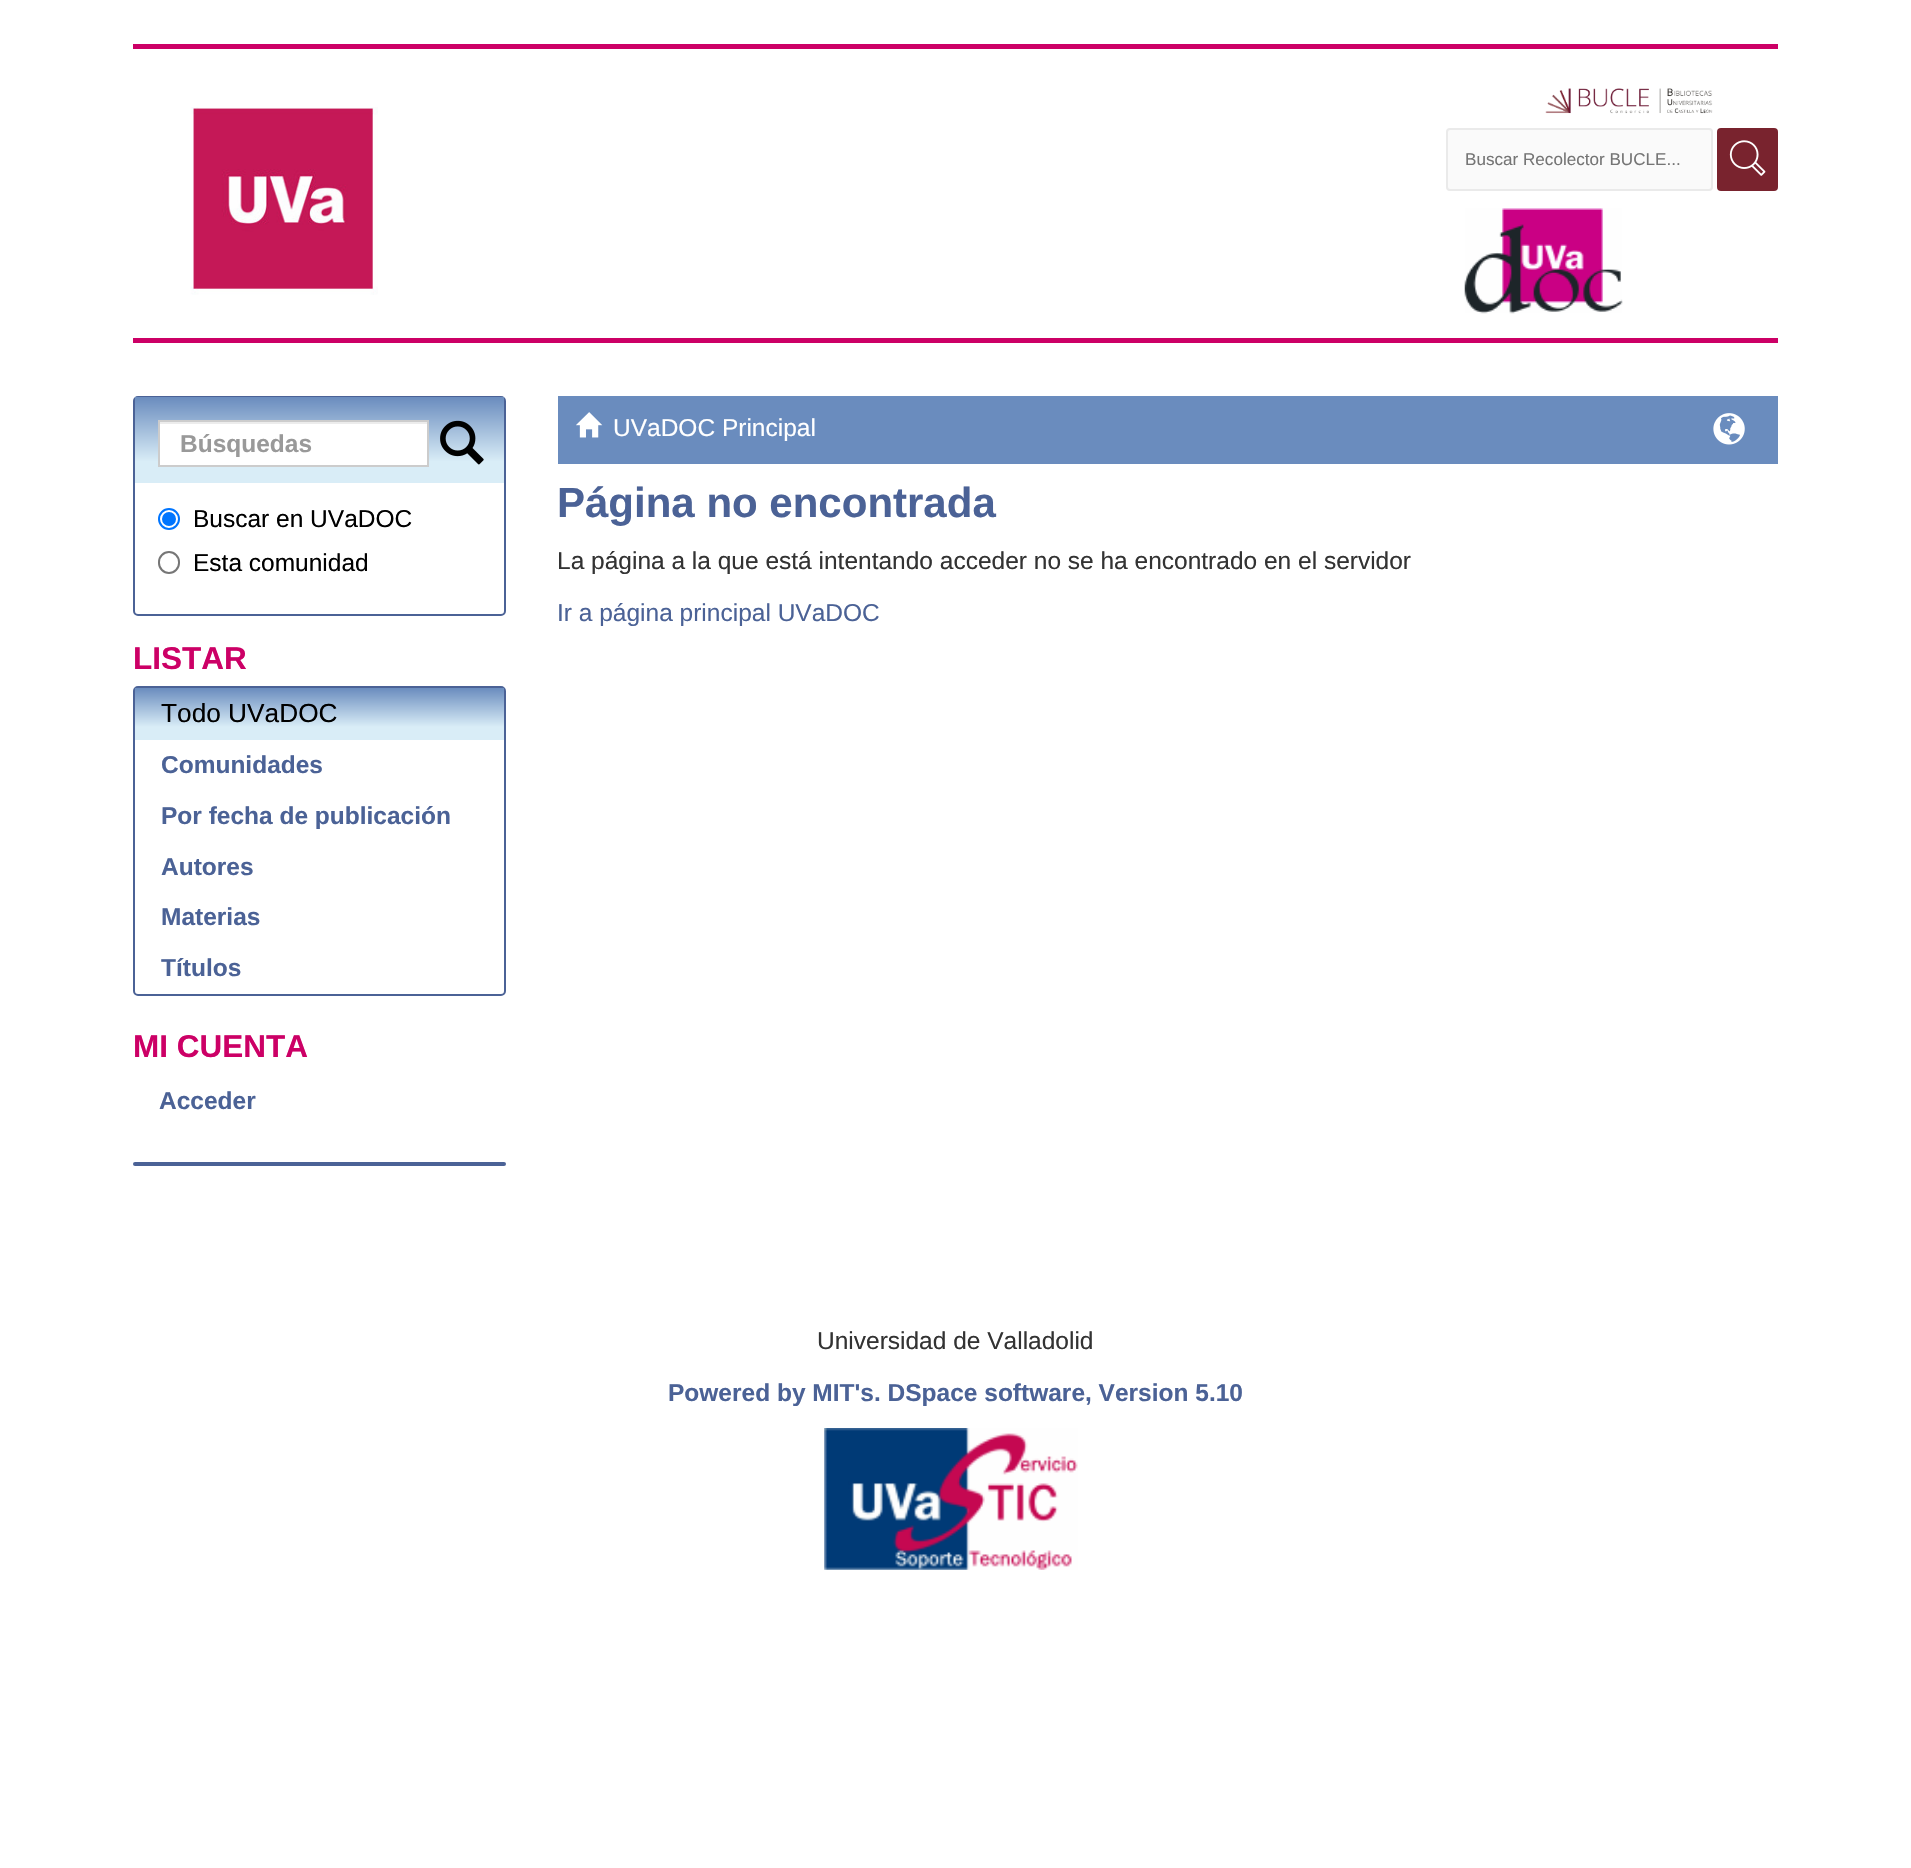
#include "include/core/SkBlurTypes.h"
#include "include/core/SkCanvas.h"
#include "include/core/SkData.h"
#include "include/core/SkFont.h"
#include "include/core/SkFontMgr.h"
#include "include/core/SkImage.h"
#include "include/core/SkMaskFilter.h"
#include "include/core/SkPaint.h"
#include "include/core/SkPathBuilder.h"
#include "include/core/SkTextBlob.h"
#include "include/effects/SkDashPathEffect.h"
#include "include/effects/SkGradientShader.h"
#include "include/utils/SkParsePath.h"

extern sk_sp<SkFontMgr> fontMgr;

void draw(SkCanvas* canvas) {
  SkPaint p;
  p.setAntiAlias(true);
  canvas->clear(SK_ColorWHITE);
  p.setColor(SkColorSetRGB(204, 0, 102));
  canvas->drawRect(SkRect::MakeLTRB(133, 44, 1778, 49), p);
  canvas->drawRect(SkRect::MakeLTRB(133, 338, 1778, 343), p);
  canvas->drawImageRect(SkImages::DeferredFromEncodedData(SkData::MakeFromFileName("images/1.png")), SkRect::MakeLTRB(190, 107, 378, 295), SkSamplingOptions());
  canvas->drawImageRect(SkImages::DeferredFromEncodedData(SkData::MakeFromFileName("images/2.png")), SkRect::MakeLTRB(1545, 88, 1713, 114), SkSamplingOptions());
  p.setColor(SkColorSetRGB(250, 250, 250));
  canvas->drawRoundRect(SkRect::MakeLTRB(1447, 129, 1712, 190), 3, 3, p);
  p.setStyle(SkPaint::kStroke_Style);
  p.setStrokeWidth(2);
  p.setColor(SkColorSetRGB(234, 234, 234));
  canvas->drawRoundRect(SkRect::MakeLTRB(1447, 129, 1712, 190), 3, 3, p);
  p.setStyle(SkPaint::kFill_Style);
  p.setColor(SkColorSetRGB(121, 35, 46));
  canvas->drawRoundRect(SkRect::MakeLTRB(1717, 128, 1778, 191), 4, 4, p);
  canvas->drawImageRect(SkImages::DeferredFromEncodedData(SkData::MakeFromFileName("images/3.png")), SkRect::MakeLTRB(1729, 140, 1766, 176), SkSamplingOptions());
  canvas->drawImageRect(SkImages::DeferredFromEncodedData(SkData::MakeFromFileName("images/4.png")), SkRect::MakeLTRB(1464, 208, 1623, 314), SkSamplingOptions());
  p.setStyle(SkPaint::kStroke_Style);
  p.setColor(SkColorSetRGB(75, 98, 150));
  canvas->drawRoundRect(SkRect::MakeLTRB(134, 397, 505, 615), 4, 4, p);
  p.setStyle(SkPaint::kFill_Style);
  {
    const SkColor colors[] = {SkColorSetRGB(106, 140, 190), SkColorSetRGB(217, 237, 247)};
    const float stops[] = {0, 0.75f};
    const SkPoint ends[] = {{319, 397}, {319, 483}};
    p.setShader(SkGradientShader::MakeLinear(ends, colors, stops, 2, SkTileMode::kClamp));
    p.setAlpha(255);
  }
  canvas->drawRect(SkRect::MakeLTRB(135, 397, 504, 483), p);
  p.setShader(nullptr);
  p.setColor(SK_ColorWHITE);
  canvas->drawRect(SkRect::MakeLTRB(160, 424, 427, 465), p);
  p.setColor(SkColorSetRGB(236, 236, 236));
  canvas->drawRect(SkRect::MakeLTRB(159, 422, 427, 424), p);
  p.setStyle(SkPaint::kStroke_Style);
  p.setColor(SkColorSetRGB(204, 204, 204));
  canvas->drawRect(SkRect::MakeLTRB(159, 421, 428, 466), p);
  canvas->drawImageRect(SkImages::DeferredFromEncodedData(SkData::MakeFromFileName("images/5.png")), SkRect::MakeLTRB(440, 420, 484, 465), SkSamplingOptions());
  p.setColor(SkColorSetRGB(0, 117, 255));
  canvas->drawCircle(169, 519, 10, p);
  p.setStyle(SkPaint::kFill_Style);
  canvas->drawCircle(169, 519, 7, p);
  p.setStyle(SkPaint::kStroke_Style);
  p.setColor(SkColorSetRGB(118, 118, 118));
  canvas->drawRoundRect(SkRect::MakeLTRB(159, 552, 179, 573), 10, 10, p);
  p.setColor(SkColorSetRGB(75, 98, 150));
  canvas->drawRoundRect(SkRect::MakeLTRB(134, 687, 505, 995), 4, 4, p);
  p.setStyle(SkPaint::kFill_Style);
  {
    const SkColor colors[] = {SkColorSetRGB(106, 140, 190), SkColorSetRGB(217, 237, 247)};
    const float stops[] = {0, 0.75f};
    const SkPoint ends[] = {{319, 688}, {319, 740}};
    p.setShader(SkGradientShader::MakeLinear(ends, colors, stops, 2, SkTileMode::kClamp));
    p.setAlpha(255);
  }
  canvas->drawRect(SkRect::MakeLTRB(135, 688, 504, 740), p);
  p.setShader(nullptr);
  p.setColor(SkColorSetRGB(75, 98, 150));
  canvas->drawRoundRect(SkRect::MakeLTRB(133, 1162, 506, 1166), 2, 2, p);
  p.setColor(SkColorSetRGB(106, 140, 190));
  canvas->drawRect(SkRect::MakeLTRB(558, 396, 1778, 464), p);
  canvas->drawImageRect(SkImages::DeferredFromEncodedData(SkData::MakeFromFileName("images/6.png")), SkRect::MakeLTRB(576, 412, 603, 438), SkSamplingOptions());
  canvas->drawImageRect(SkImages::DeferredFromEncodedData(SkData::MakeFromFileName("images/7.png")), SkRect::MakeLTRB(1713, 413, 1745, 445), SkSamplingOptions());
  canvas->drawImageRect(SkImages::DeferredFromEncodedData(SkData::MakeFromFileName("images/8.png")), SkRect::MakeLTRB(824, 1428, 1078, 1570), SkSamplingOptions());
  SkFont font1(fontMgr->matchFamilyStyle("Liberation Sans", SkFontStyle::Normal()), 17.1f);
  font1.setSubpixel(true);
  p.setColor(SkColorSetRGB(117, 117, 117));
  canvas->drawString("Buscar Recolector BUCLE...", 1465, 165, font1, p);
  SkFont font2(fontMgr->matchFamilyStyle("Liberation Sans", SkFontStyle::Bold()), 24.5f);
  font2.setSubpixel(true);
  p.setColor(SkColorSetRGB(153, 153, 153));
  canvas->drawString("Búsquedas", 180, 452, font2, p);
  SkFont font3(fontMgr->matchFamilyStyle("Liberation Sans", SkFontStyle::Normal()), 24.5f);
  font3.setSubpixel(true);
  p.setColor(SK_ColorBLACK);
  canvas->drawString("Buscar en UVaDOC", 193, 527, font3, p);
  canvas->drawString("Esta comunidad", 193, 571, font3, p);
  SkFont font4(fontMgr->matchFamilyStyle("Liberation Sans", SkFontStyle::Bold()), 31.5f);
  font4.setSubpixel(true);
  p.setColor(SkColorSetRGB(204, 0, 102));
  canvas->drawString("LISTAR", 133, 669, font4, p);
  SkFont font5(fontMgr->matchFamilyStyle("Liberation Sans", SkFontStyle::Normal()), 26.25f);
  font5.setSubpixel(true);
  p.setColor(SK_ColorBLACK);
  canvas->drawString("Todo UVaDOC", 161, 722, font5, p);
  p.setColor(SkColorSetRGB(75, 98, 150));
  canvas->drawString("Comunidades", 161, 773, font2, p);
  canvas->drawString("Por fecha de publicación", 161, 824, font2, p);
  canvas->drawString("Autores", 161, 875, font2, p);
  canvas->drawString("Materias", 161, 925, font2, p);
  canvas->drawString("Títulos", 161, 976, font2, p);
  p.setColor(SkColorSetRGB(204, 0, 102));
  canvas->drawString("MI CUENTA", 133, 1057, font4, p);
  p.setColor(SkColorSetRGB(75, 98, 150));
  canvas->drawString("Acceder", 159, 1109, font2, p);
  p.setColor(SK_ColorWHITE);
  canvas->drawString("UVaDOC Principal", 613, 436, font3, p);
  SkFont font6(fontMgr->matchFamilyStyle("Liberation Sans", SkFontStyle::Bold()), 42);
  font6.setSubpixel(true);
  p.setColor(SkColorSetRGB(75, 98, 150));
  canvas->drawString("Página no encontrada", 557, 517, font6, p);
  p.setColor(SkColorSetRGB(51, 51, 51));
  canvas->drawString("La página a la que está intentando acceder no se ha encontrado en el servidor", 557, 569, font3, p);
  p.setColor(SkColorSetRGB(75, 98, 150));
  canvas->drawString("Ir a página principal UVaDOC", 557, 621, font3, p);
  p.setColor(SkColorSetRGB(51, 51, 51));
  canvas->drawString("Universidad de Valladolid", 817, 1349, font3, p);
  p.setColor(SkColorSetRGB(75, 98, 150));
  canvas->drawString("Powered by MIT's. DSpace software, Version 5.10", 668, 1401, font2, p);
}
